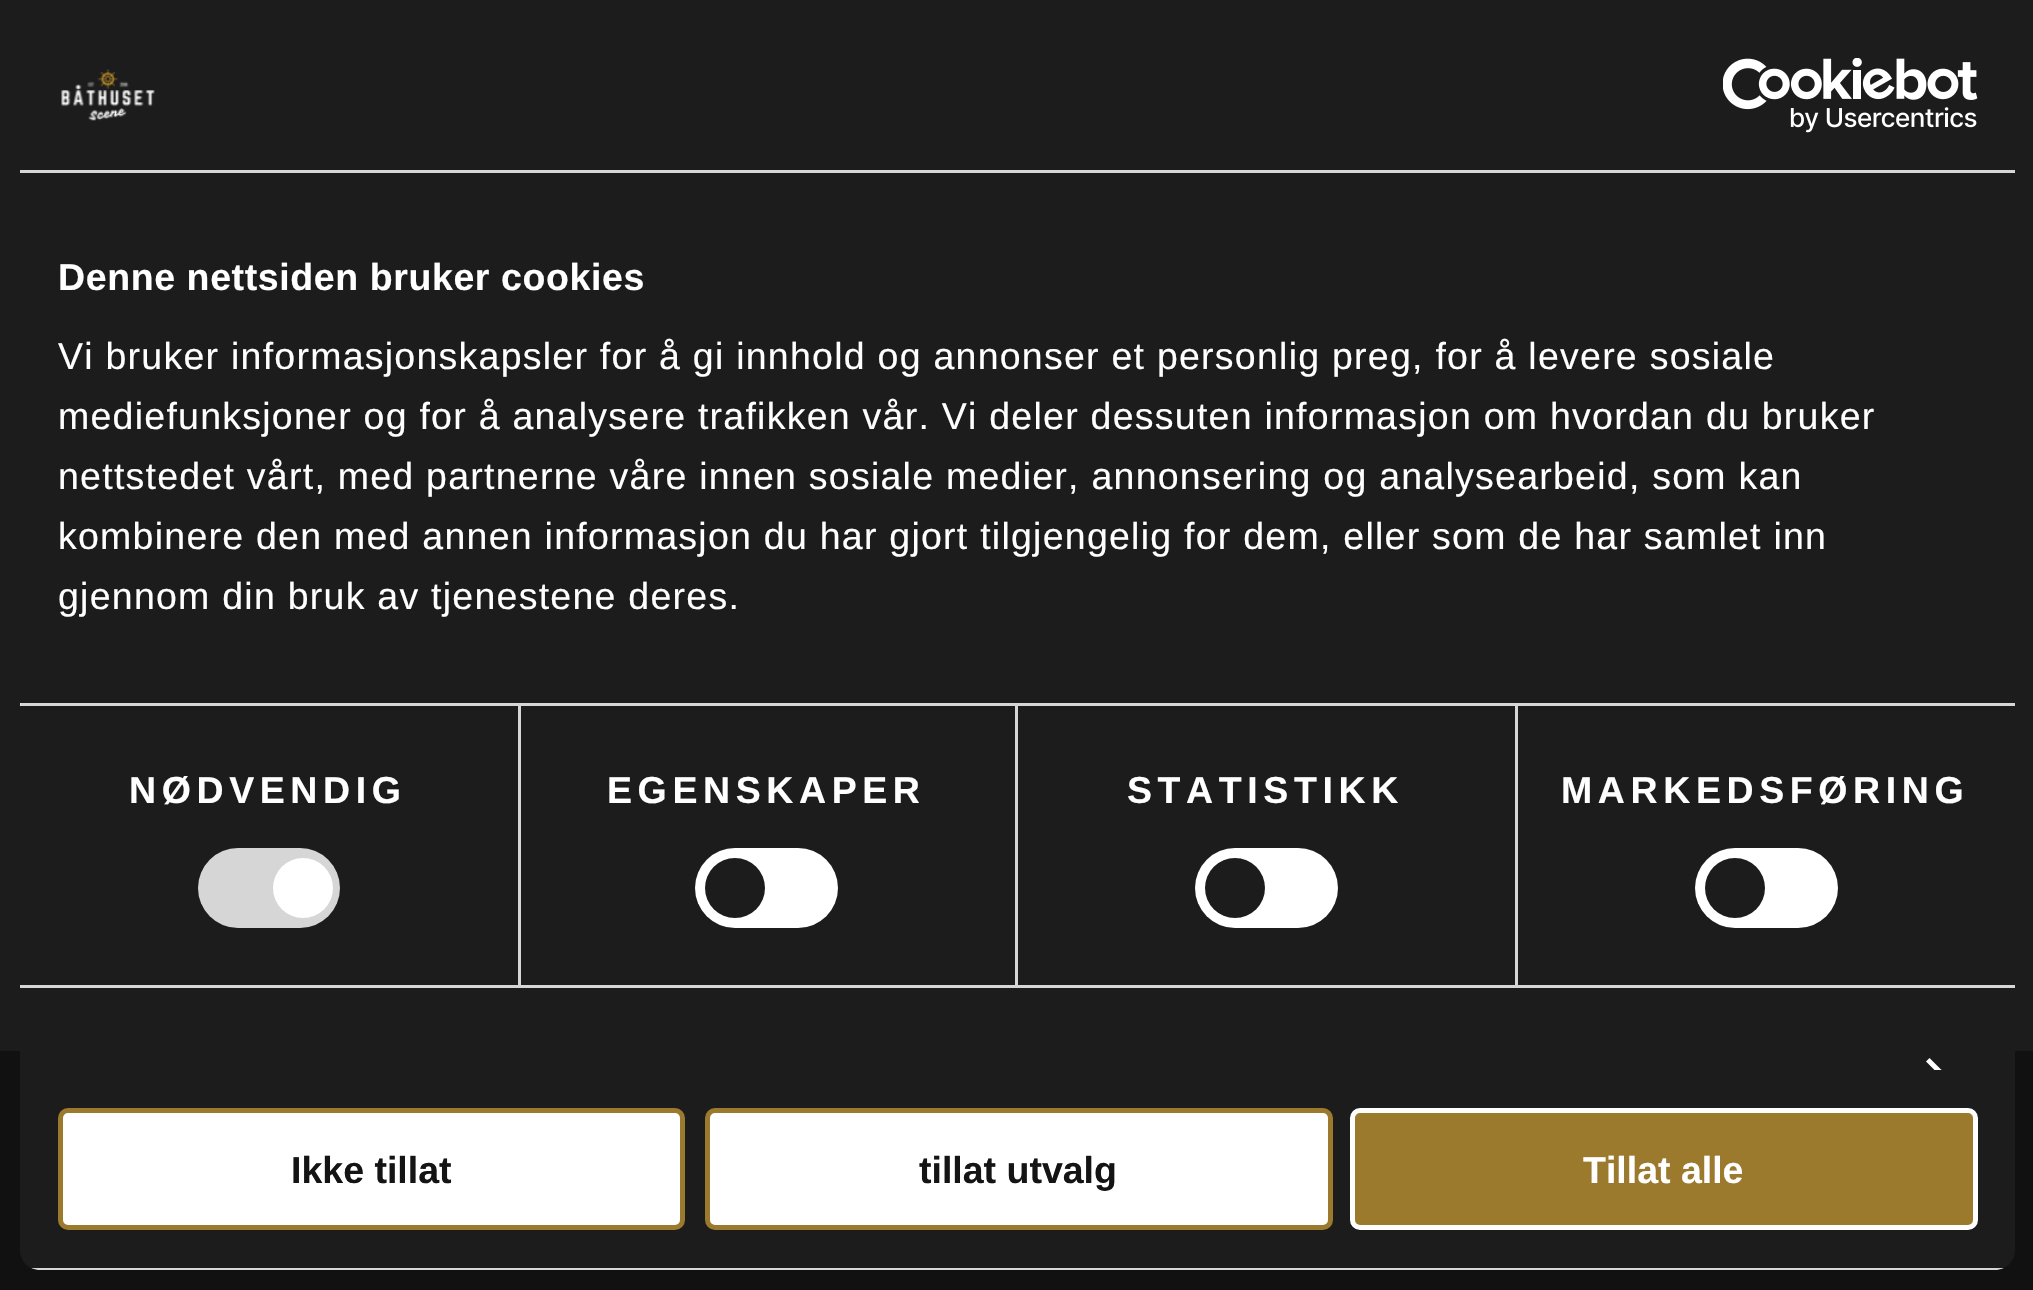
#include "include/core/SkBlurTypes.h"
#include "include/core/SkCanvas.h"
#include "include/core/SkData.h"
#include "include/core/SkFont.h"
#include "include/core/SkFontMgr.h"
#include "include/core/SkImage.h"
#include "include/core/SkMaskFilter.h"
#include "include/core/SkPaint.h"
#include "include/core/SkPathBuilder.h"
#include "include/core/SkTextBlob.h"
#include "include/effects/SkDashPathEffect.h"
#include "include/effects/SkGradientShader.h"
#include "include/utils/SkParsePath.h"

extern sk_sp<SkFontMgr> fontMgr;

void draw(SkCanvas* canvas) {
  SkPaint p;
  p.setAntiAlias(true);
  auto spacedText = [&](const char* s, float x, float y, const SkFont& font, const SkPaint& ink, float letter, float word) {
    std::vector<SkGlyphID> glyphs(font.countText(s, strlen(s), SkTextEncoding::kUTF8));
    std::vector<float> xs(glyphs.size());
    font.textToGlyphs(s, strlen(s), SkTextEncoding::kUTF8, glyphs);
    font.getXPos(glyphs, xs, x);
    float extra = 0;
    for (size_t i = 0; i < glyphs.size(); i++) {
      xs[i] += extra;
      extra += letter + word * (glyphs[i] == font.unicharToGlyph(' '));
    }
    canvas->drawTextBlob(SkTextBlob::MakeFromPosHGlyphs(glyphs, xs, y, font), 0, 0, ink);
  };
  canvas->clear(SkColorSetRGB(28, 28, 28));
  p.setColor(SkColorSetRGB(17, 17, 17));
  canvas->drawRect(SkRect::MakeLTRB(0, 1051, 2033, 1290), p);
  p.setColor(SkColorSetRGB(28, 28, 28));
  canvas->drawRoundRect(SkRect::MakeLTRB(20, 20, 2015, 1270), 20, 20, p);
  p.setColor(SkColorSetRGB(214, 214, 214));
  canvas->drawRect(SkRect::MakeLTRB(20, 170, 2015, 173), p);
  canvas->drawImageRect(SkImages::DeferredFromEncodedData(SkData::MakeFromFileName("images/1.png")), SkRect::MakeLTRB(61, 69, 155, 121), SkSamplingOptions());
  canvas->drawImageRect(SkImages::DeferredFromEncodedData(SkData::MakeFromFileName("images/2.png")), SkRect::MakeLTRB(1723, 58, 1978, 133), SkSamplingOptions());
  canvas->drawRect(SkRect::MakeLTRB(518, 705, 521, 985), p);
  canvas->drawRect(SkRect::MakeLTRB(1015, 705, 1018, 985), p);
  canvas->drawRect(SkRect::MakeLTRB(1515, 705, 1518, 985), p);
  canvas->drawRect(SkRect::MakeLTRB(20, 703, 2015, 706), p);
  canvas->drawRect(SkRect::MakeLTRB(20, 985, 2015, 988), p);
  p.setColor(SkColorSetRGB(229, 229, 229));
  canvas->drawRect(SkRect::MakeLTRB(20, 703, 21, 706), p);
  p.setColor(SkColorSetRGB(214, 214, 214));
  canvas->drawRoundRect(SkRect::MakeLTRB(198, 848, 340, 928), 40, 40, p);
  p.setColor(SK_ColorWHITE);
  canvas->drawCircle(303, 888, 30, p);
  canvas->drawRoundRect(SkRect::MakeLTRB(695, 848, 838, 928), 40, 40, p);
  p.setColor(SkColorSetRGB(28, 28, 28));
  canvas->drawCircle(735, 888, 30, p);
  p.setColor(SK_ColorWHITE);
  canvas->drawRoundRect(SkRect::MakeLTRB(1195, 848, 1338, 928), 40, 40, p);
  p.setColor(SkColorSetRGB(28, 28, 28));
  canvas->drawCircle(1235, 888, 30, p);
  p.setColor(SK_ColorWHITE);
  canvas->drawRoundRect(SkRect::MakeLTRB(1695, 848, 1838, 928), 40, 40, p);
  p.setColor(SkColorSetRGB(28, 28, 28));
  canvas->drawCircle(1735, 888, 30, p);
  canvas->save();
  canvas->clipRect(SkRect::MakeLTRB(20, 173, 2015, 1070));
  p.setColor(SK_ColorWHITE);
  canvas->drawPath(SkPathBuilder().moveTo(1929.5f, 1058).lineTo(1944.5f, 1073).lineTo(1941, 1076.5f).lineTo(1926, 1061.5f).close().detach(), p);
  canvas->drawPath(SkPathBuilder().moveTo(1941, 1069.5f).lineTo(1944.5f, 1073).lineTo(1929.5f, 1088).lineTo(1926, 1084.5f).close().detach(), p);
  canvas->restore();
  canvas->save();
  canvas->clipPath(SkPathBuilder().moveTo(40, 20).lineTo(1995, 20).cubicTo(2006, 20, 2015, 29, 2015, 40).lineTo(2015, 1250).cubicTo(2015, 1261, 2006, 1270, 1995, 1270).lineTo(40, 1270).cubicTo(29, 1270, 20, 1261, 20, 1250).lineTo(20, 40).cubicTo(20, 29, 29, 20, 40, 20).close().detach(), true);
  p.setColor(SkColorSetRGB(214, 214, 214));
  canvas->drawRect(SkRect::MakeLTRB(31, 1268, 2004, 1270), p);
  canvas->restore();
  p.setColor(SK_ColorWHITE);
  canvas->drawRoundRect(SkRect::MakeLTRB(60.5f, 1110.5f, 682.5f, 1227.5f), 7.5f, 7.5f, p);
  p.setStyle(SkPaint::kStroke_Style);
  p.setStrokeWidth(5);
  p.setColor(SkColorSetRGB(155, 121, 45));
  canvas->drawRoundRect(SkRect::MakeLTRB(60.5f, 1110.5f, 682.5f, 1227.5f), 7.5f, 7.5f, p);
  p.setStyle(SkPaint::kFill_Style);
  p.setColor(SK_ColorWHITE);
  canvas->drawRoundRect(SkRect::MakeLTRB(707.5f, 1110.5f, 1330.5f, 1227.5f), 7.5f, 7.5f, p);
  p.setStyle(SkPaint::kStroke_Style);
  p.setColor(SkColorSetRGB(155, 121, 45));
  canvas->drawRoundRect(SkRect::MakeLTRB(707.5f, 1110.5f, 1330.5f, 1227.5f), 7.5f, 7.5f, p);
  p.setStyle(SkPaint::kFill_Style);
  canvas->drawRoundRect(SkRect::MakeLTRB(1352.5f, 1110.5f, 1975.5f, 1227.5f), 7.5f, 7.5f, p);
  p.setStyle(SkPaint::kStroke_Style);
  p.setColor(SK_ColorWHITE);
  canvas->drawRoundRect(SkRect::MakeLTRB(1352.5f, 1110.5f, 1975.5f, 1227.5f), 7.5f, 7.5f, p);
  SkFont font1(fontMgr->matchFamilyStyle("Liberation Sans", SkFontStyle::Bold()), 37.5f);
  font1.setSubpixel(true);
  p.setStyle(SkPaint::kFill_Style);
  spacedText("Denne nettsiden bruker cookies", 58, 290, font1, p, 0.6f, 0);
  SkFont font2(fontMgr->matchFamilyStyle("Liberation Sans", SkFontStyle::Normal()), 37.5f);
  font2.setSubpixel(true);
  spacedText("Vi bruker informasjonskapsler for å gi innhold og annonser et personlig preg, for å levere sosiale", 58, 369, font2, p, 1.25f, 0);
  spacedText("mediefunksjoner og for å analysere trafikken vår. Vi deler dessuten informasjon om hvordan du bruker", 58, 429, font2, p, 1.25f, 0);
  spacedText("nettstedet vårt, med partnerne våre innen sosiale medier, annonsering og analysearbeid, som kan", 58, 489, font2, p, 1.25f, 0);
  spacedText("kombinere den med annen informasjon du har gjort tilgjengelig for dem, eller som de har samlet inn", 58, 549, font2, p, 1.25f, 0);
  spacedText("gjennom din bruk av tjenestene deres.", 58, 609, font2, p, 1.25f, 0);
  spacedText("NØDVENDIG", 129, 803, font1, p, 5.6f, 0);
  spacedText("EGENSKAPER", 607, 803, font1, p, 5.6f, 0);
  spacedText("STATISTIKK", 1127, 803, font1, p, 5.6f, 0);
  spacedText("MARKEDSFØRING", 1561, 803, font1, p, 5.6f, 0);
  p.setColor(SkColorSetRGB(20, 20, 20));
  canvas->drawString("Ikke tillat", 291, 1183, font1, p);
  canvas->drawString("tillat utvalg", 919, 1183, font1, p);
  p.setColor(SK_ColorWHITE);
  canvas->drawString("Tillat alle", 1583, 1183, font1, p);
}
